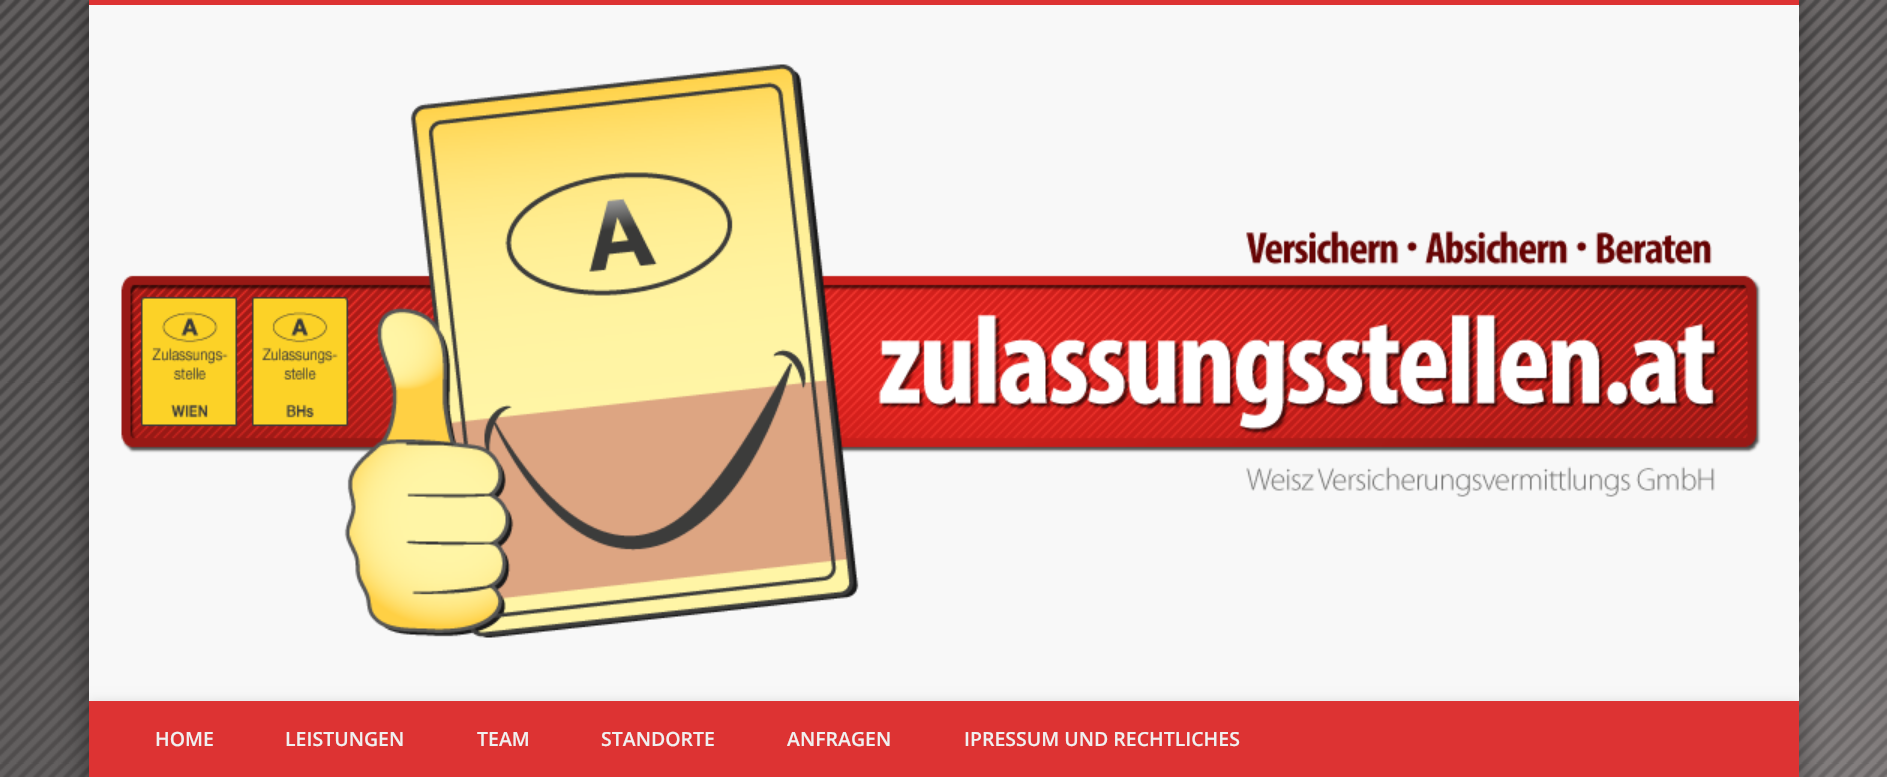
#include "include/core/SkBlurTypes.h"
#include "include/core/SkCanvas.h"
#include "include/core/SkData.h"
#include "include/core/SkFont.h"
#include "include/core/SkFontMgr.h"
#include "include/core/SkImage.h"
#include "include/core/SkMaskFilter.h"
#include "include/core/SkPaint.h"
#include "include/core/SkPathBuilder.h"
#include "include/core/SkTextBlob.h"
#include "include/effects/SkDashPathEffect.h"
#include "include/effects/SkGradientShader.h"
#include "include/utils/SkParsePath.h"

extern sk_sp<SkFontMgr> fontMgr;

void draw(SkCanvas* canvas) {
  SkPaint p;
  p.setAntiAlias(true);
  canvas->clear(SK_ColorWHITE);
  canvas->drawImageRect(SkImages::DeferredFromEncodedData(SkData::MakeFromFileName("images/1.png")), SkRect::MakeLTRB(0, 0, 1887, 777), SkSamplingOptions());
  p.setColor(SkColorSetARGB(102, 0, 0, 0));
  p.setMaskFilter(SkMaskFilter::MakeBlur(kNormal_SkBlurStyle, 13.5f));
  canvas->drawRect(SkRect::MakeLTRB(89, 0, 1799, 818), p);
  p.setMaskFilter(nullptr);
  p.setColor(SkColorSetRGB(248, 248, 248));
  canvas->drawRect(SkRect::MakeLTRB(89, 5, 1799, 701), p);
  p.setColor(SkColorSetRGB(221, 51, 51));
  canvas->drawRect(SkRect::MakeLTRB(89, 0, 1799, 5), p);
  canvas->drawImageRect(SkImages::DeferredFromEncodedData(SkData::MakeFromFileName("images/2.png")), SkRect::MakeLTRB(121, 64, 1761, 638), SkSamplingOptions());
  canvas->save();
  canvas->clipRect(SkRect::MakeLTRB(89, 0, 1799, 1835));
  p.setColor(SkColorSetARGB(26, 0, 0, 0));
  p.setMaskFilter(SkMaskFilter::MakeBlur(kNormal_SkBlurStyle, 5));
  canvas->drawRect(SkRect::MakeLTRB(89, 701, 1799, 777), p);
  p.setMaskFilter(nullptr);
  canvas->restore();
  p.setColor(SkColorSetRGB(221, 51, 51));
  canvas->drawRect(SkRect::MakeLTRB(89, 701, 1799, 777), p);
  SkFont font1(fontMgr->matchFamilyStyle("Open Sans", SkFontStyle(600, SkFontStyle::kNormal_Width, SkFontStyle::kUpright_Slant)), 19.5f);
  font1.setSubpixel(true);
  p.setColor(SkColorSetRGB(240, 240, 240));
  canvas->drawString("HOME", 155, 746, font1, p);
  canvas->drawString("LEISTUNGEN", 285, 746, font1, p);
  canvas->drawString("TEAM", 477, 746, font1, p);
  canvas->drawString("STANDORTE", 601, 746, font1, p);
  canvas->drawString("ANFRAGEN", 787, 746, font1, p);
  canvas->drawString("IPRESSUM UND RECHTLICHES", 964, 746, font1, p);
}
